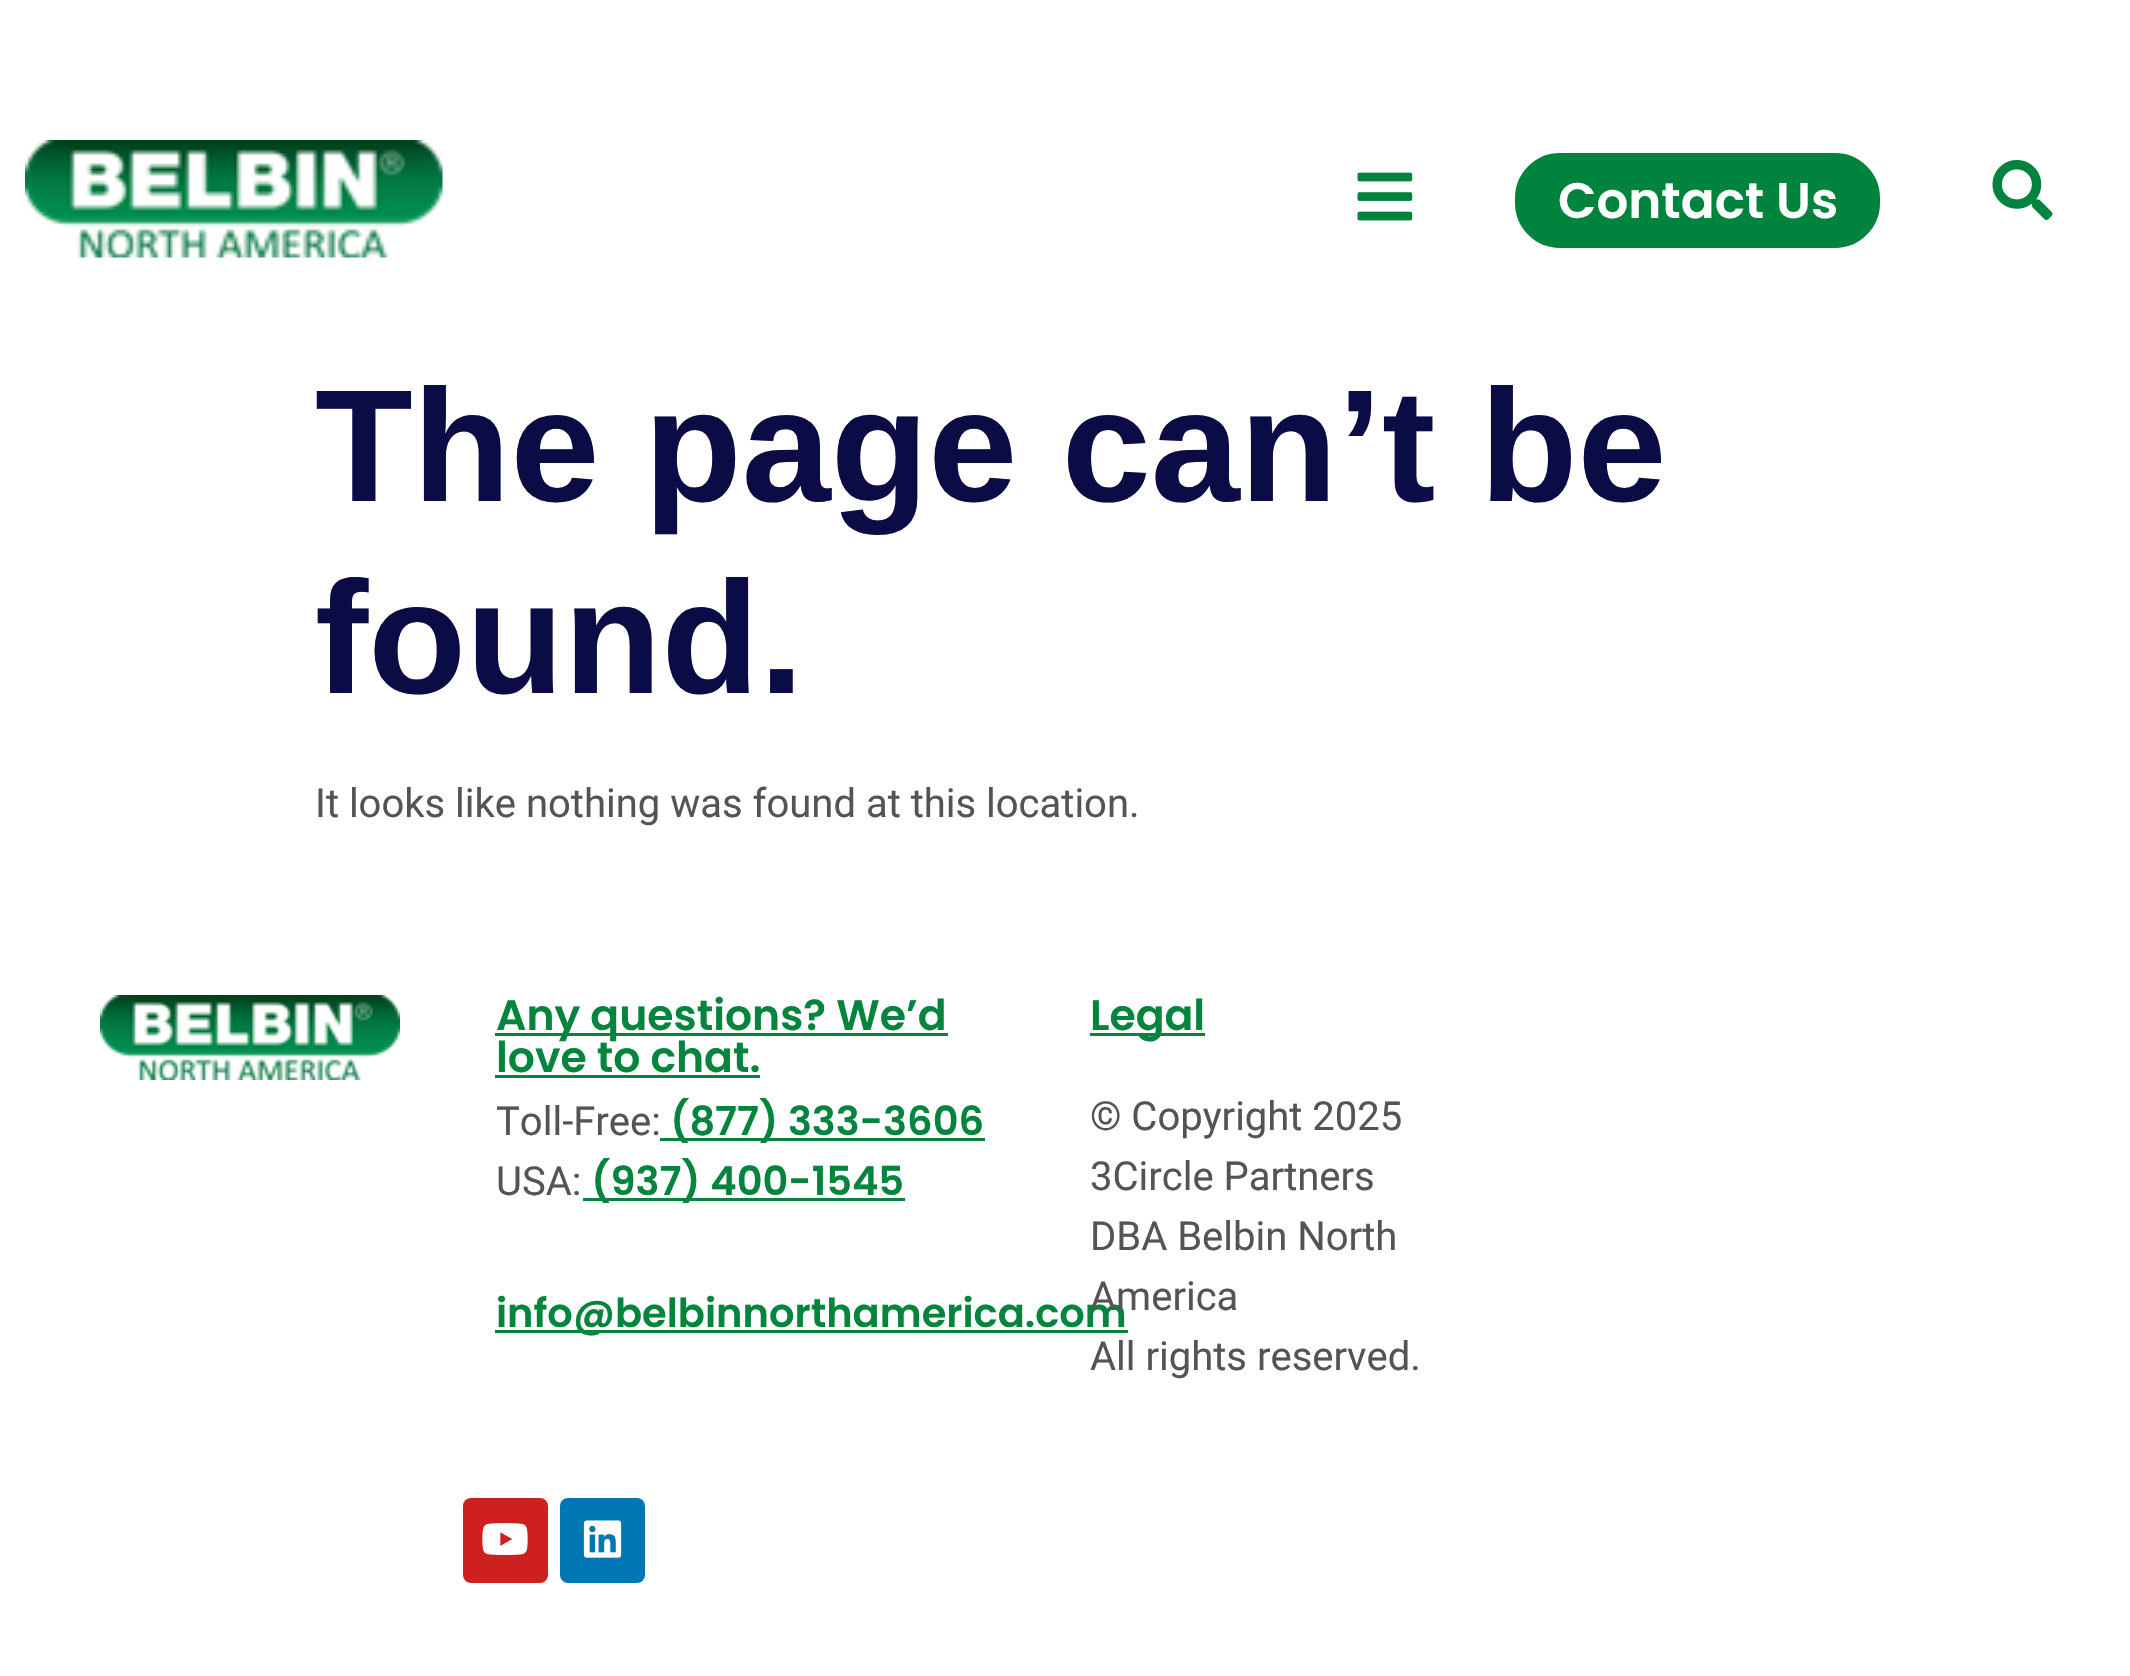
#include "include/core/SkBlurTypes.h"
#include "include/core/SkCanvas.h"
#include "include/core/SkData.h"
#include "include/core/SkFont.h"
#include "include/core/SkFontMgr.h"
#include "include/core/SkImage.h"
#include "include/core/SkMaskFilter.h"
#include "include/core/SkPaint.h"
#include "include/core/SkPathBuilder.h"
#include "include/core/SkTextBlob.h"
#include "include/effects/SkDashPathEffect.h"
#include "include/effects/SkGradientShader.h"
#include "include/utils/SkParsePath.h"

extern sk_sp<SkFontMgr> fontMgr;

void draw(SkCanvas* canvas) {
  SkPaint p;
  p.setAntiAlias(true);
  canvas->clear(SK_ColorWHITE);
  canvas->drawImageRect(SkImages::DeferredFromEncodedData(SkData::MakeFromFileName("images/1.png")), SkRect::MakeLTRB(25, 140, 443, 258), SkSamplingOptions());
  canvas->drawImageRect(SkImages::DeferredFromEncodedData(SkData::MakeFromFileName("images/2.png")), SkRect::MakeLTRB(1357, 172, 1413, 221), SkSamplingOptions());
  p.setColor(SkColorSetRGB(0, 132, 61));
  canvas->drawRoundRect(SkRect::MakeLTRB(1516.5f, 154.5f, 1878.5f, 246.5f), 43.5f, 43.5f, p);
  p.setStyle(SkPaint::kStroke_Style);
  p.setStrokeWidth(3);
  canvas->drawRoundRect(SkRect::MakeLTRB(1516.5f, 154.5f, 1878.5f, 246.5f), 43.5f, 43.5f, p);
  canvas->drawImageRect(SkImages::DeferredFromEncodedData(SkData::MakeFromFileName("images/3.png")), SkRect::MakeLTRB(1992, 160, 2053, 220), SkSamplingOptions());
  canvas->drawImageRect(SkImages::DeferredFromEncodedData(SkData::MakeFromFileName("images/4.png")), SkRect::MakeLTRB(100, 995, 400, 1080), SkSamplingOptions());
  p.setStyle(SkPaint::kFill_Style);
  p.setColor(SkColorSetRGB(4, 132, 60));
  canvas->drawRect(SkRect::MakeLTRB(495, 1033, 948, 1036), p);
  canvas->drawRect(SkRect::MakeLTRB(495, 1075, 760, 1078), p);
  canvas->drawRect(SkRect::MakeLTRB(660, 1138, 985, 1141), p);
  canvas->drawRect(SkRect::MakeLTRB(583, 1198, 905, 1201), p);
  canvas->drawRect(SkRect::MakeLTRB(495, 1330, 1128, 1333), p);
  canvas->drawRect(SkRect::MakeLTRB(1090, 1033, 1205, 1036), p);
  p.setColor(SkColorSetRGB(205, 32, 31));
  canvas->drawRoundRect(SkRect::MakeLTRB(463, 1498, 548, 1583), 8, 8, p);
  canvas->drawImageRect(SkImages::DeferredFromEncodedData(SkData::MakeFromFileName("images/5.png")), SkRect::MakeLTRB(482, 1523, 528, 1555), SkSamplingOptions());
  p.setColor(SkColorSetRGB(0, 119, 181));
  canvas->drawRoundRect(SkRect::MakeLTRB(560, 1498, 645, 1583), 8, 8, p);
  canvas->drawImageRect(SkImages::DeferredFromEncodedData(SkData::MakeFromFileName("images/6.png")), SkRect::MakeLTRB(583, 1520, 622, 1558), SkSamplingOptions());
  SkFont font1(fontMgr->matchFamilyStyle("Poppins", SkFontStyle(600, SkFontStyle::kNormal_Width, SkFontStyle::kUpright_Slant)), 50);
  font1.setSubpixel(true);
  p.setColor(SK_ColorWHITE);
  canvas->drawString("Contact Us", 1558, 218, font1, p);
  SkFont font2(fontMgr->matchFamilyStyle("Liberation Sans", SkFontStyle::Bold()), 160);
  font2.setSubpixel(true);
  p.setColor(SkColorSetRGB(11, 11, 69));
  canvas->drawString("The page can’t be", 315, 501, font2, p);
  canvas->drawString("found.", 315, 693, font2, p);
  SkFont font3(fontMgr->matchFamilyStyle("Roboto", SkFontStyle::Normal()), 40);
  font3.setSubpixel(true);
  p.setColor(SkColorSetRGB(84, 84, 84));
  canvas->drawString("It looks like nothing was found at this location.", 315, 817, font3, p);
  SkFont font4(fontMgr->matchFamilyStyle("Poppins", SkFontStyle(600, SkFontStyle::kNormal_Width, SkFontStyle::kUpright_Slant)), 42.5f);
  font4.setSubpixel(true);
  p.setColor(SkColorSetRGB(4, 132, 60));
  canvas->drawString("Any questions? We’d", 496, 1030, font4, p);
  canvas->drawString("love to chat.", 496, 1072, font4, p);
  p.setColor(SkColorSetRGB(84, 84, 84));
  canvas->drawString("Toll-Free:", 496, 1135, font3, p);
  SkFont font5(fontMgr->matchFamilyStyle("Poppins", SkFontStyle(600, SkFontStyle::kNormal_Width, SkFontStyle::kUpright_Slant)), 40);
  font5.setSubpixel(true);
  p.setColor(SkColorSetRGB(4, 132, 60));
  canvas->drawString("(877) 333-3606", 670, 1135, font5, p);
  p.setColor(SkColorSetRGB(84, 84, 84));
  canvas->drawString("USA:", 496, 1195, font3, p);
  p.setColor(SkColorSetRGB(4, 132, 60));
  canvas->drawString("(937) 400-1545", 591, 1195, font5, p);
  canvas->drawString("info@belbinnorthamerica.com", 496, 1327, font5, p);
  canvas->drawString("Legal", 1090, 1030, font4, p);
  p.setColor(SkColorSetRGB(84, 84, 84));
  canvas->drawString("© Copyright 2025", 1090, 1130, font3, p);
  canvas->drawString("3Circle Partners", 1090, 1190, font3, p);
  canvas->drawString("DBA Belbin North", 1090, 1250, font3, p);
  canvas->drawString("America", 1090, 1310, font3, p);
  canvas->drawString("All rights reserved.", 1090, 1370, font3, p);
}
